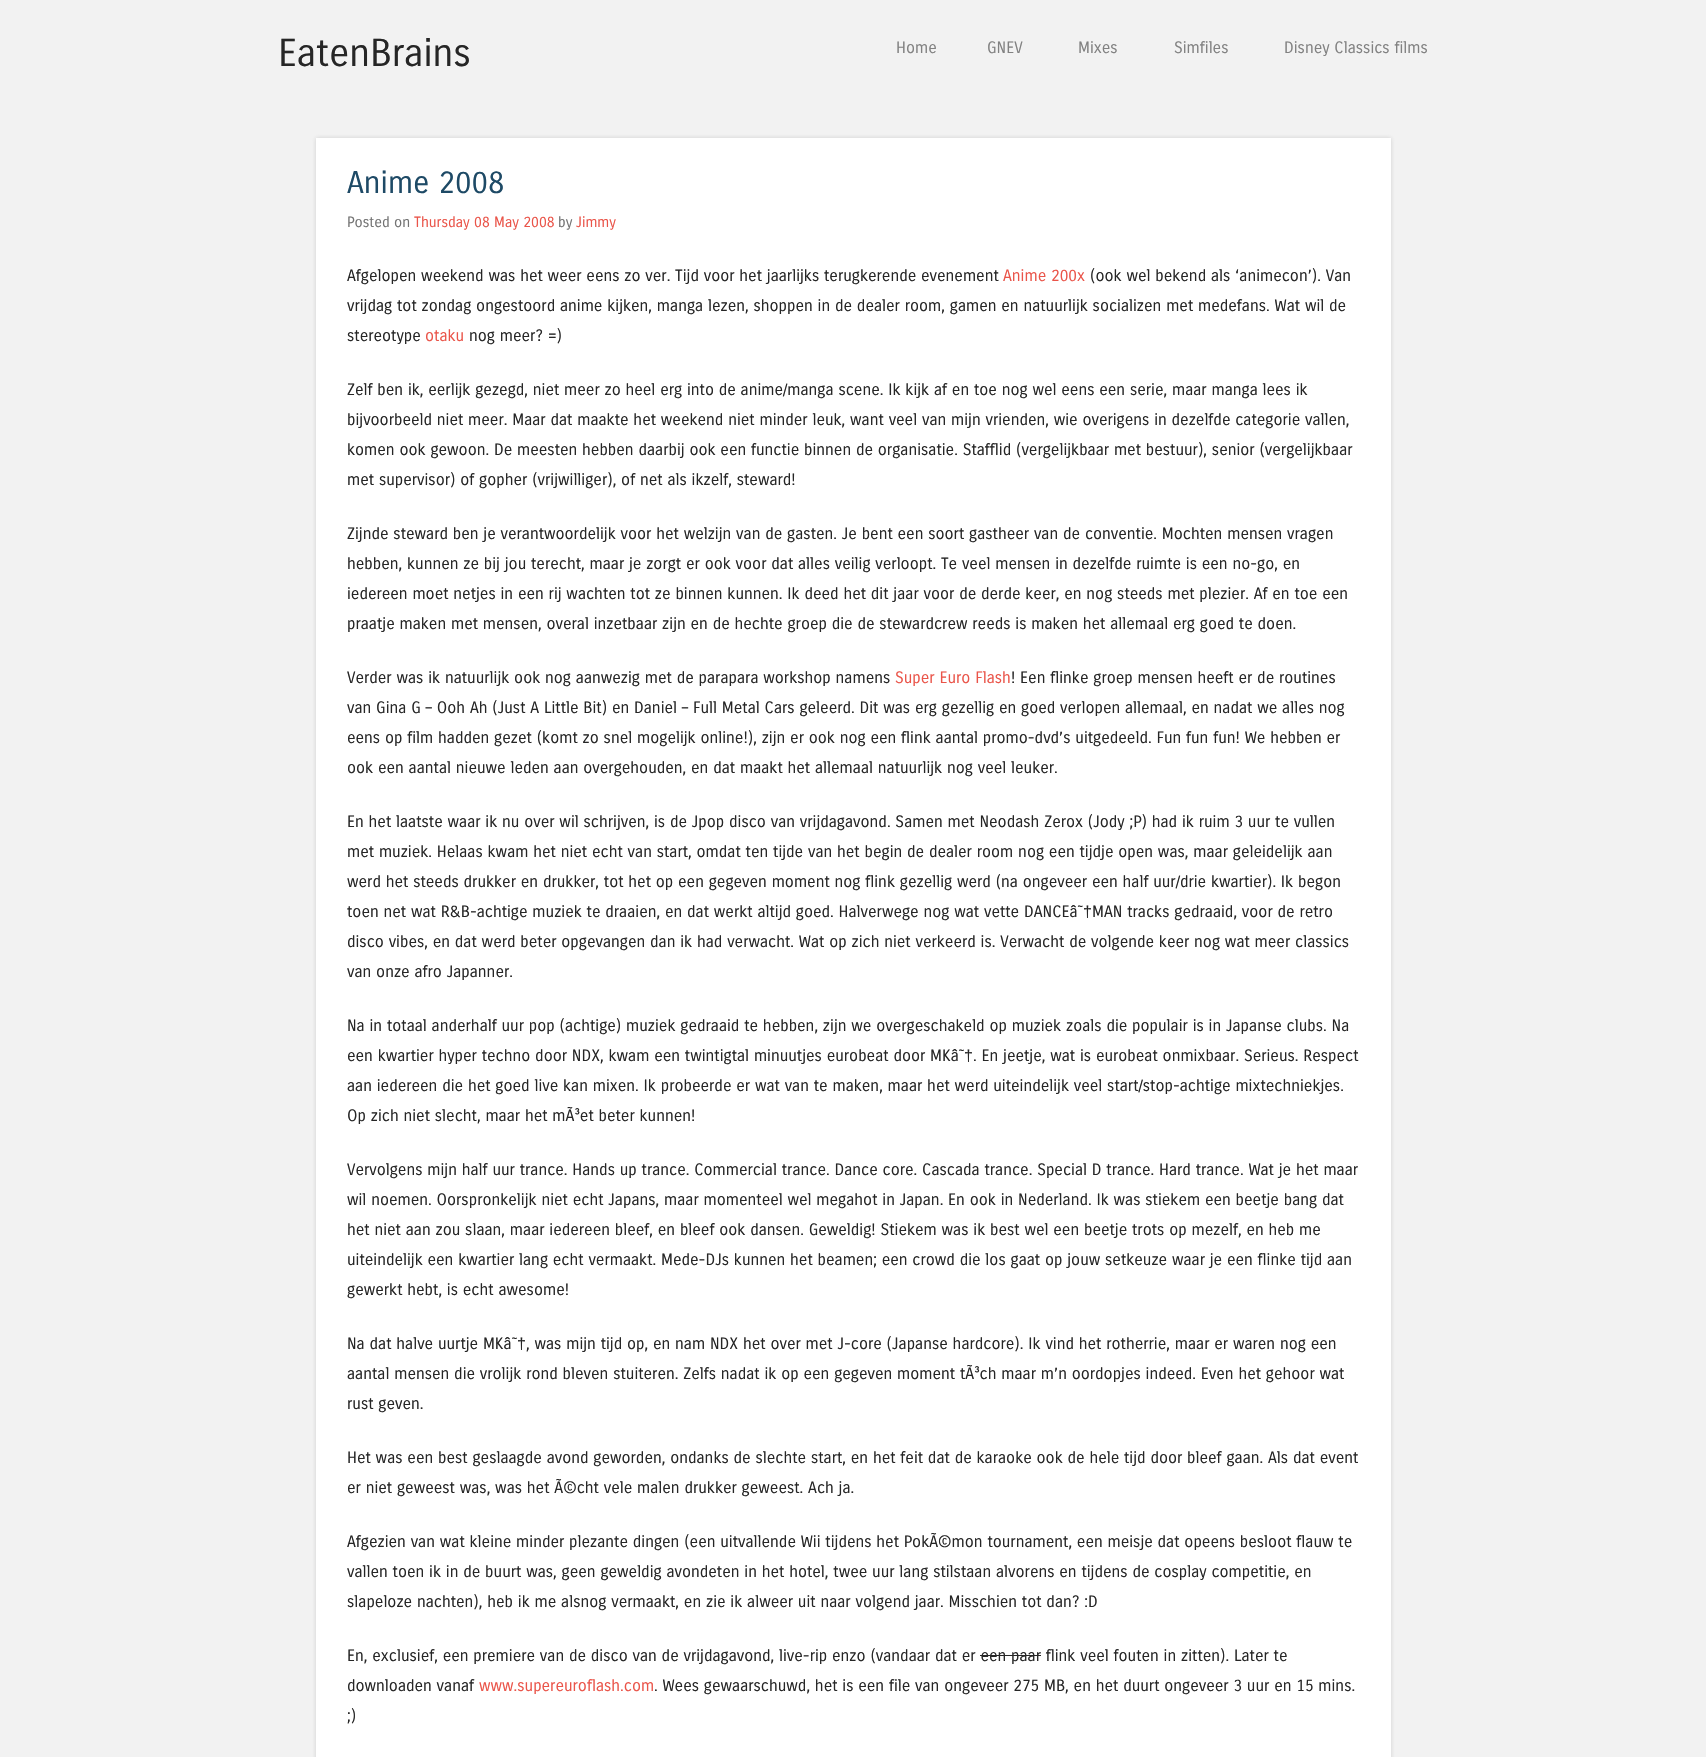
#include "include/core/SkBlurTypes.h"
#include "include/core/SkCanvas.h"
#include "include/core/SkData.h"
#include "include/core/SkFont.h"
#include "include/core/SkFontMgr.h"
#include "include/core/SkImage.h"
#include "include/core/SkMaskFilter.h"
#include "include/core/SkPaint.h"
#include "include/core/SkPathBuilder.h"
#include "include/core/SkTextBlob.h"
#include "include/effects/SkDashPathEffect.h"
#include "include/effects/SkGradientShader.h"
#include "include/utils/SkParsePath.h"

extern sk_sp<SkFontMgr> fontMgr;

void draw(SkCanvas* canvas) {
  SkPaint p;
  p.setAntiAlias(true);
  canvas->clear(SkColorSetRGB(242, 242, 242));
  p.setColor(SkColorSetARGB(64, 100, 100, 100));
  p.setMaskFilter(SkMaskFilter::MakeBlur(kNormal_SkBlurStyle, 2));
  canvas->drawRect(SkRect::MakeLTRB(316, 138, 1391, 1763), p);
  p.setMaskFilter(nullptr);
  p.setColor(SK_ColorWHITE);
  canvas->drawRect(SkRect::MakeLTRB(316, 138, 1391, 1757), p);
  p.setColor(SkColorSetRGB(38, 38, 38));
  canvas->drawRect(SkRect::MakeLTRB(980, 1655, 1041, 1656), p);
  SkFont font1(fontMgr->matchFamilyStyle("Carrois Gothic", SkFontStyle::Normal()), 38);
  font1.setSubpixel(true);
  canvas->drawString("EatenBrains", 278, 66, font1, p);
  SkFont font2(fontMgr->matchFamilyStyle("Carrois Gothic", SkFontStyle::Normal()), 16);
  font2.setSubpixel(true);
  p.setColor(SkColorSetRGB(129, 129, 129));
  canvas->drawString("Home", 896, 53, font2, p);
  canvas->drawString("GNEV", 987, 53, font2, p);
  canvas->drawString("Mixes", 1078, 53, font2, p);
  canvas->drawString("Simfiles", 1174, 53, font2, p);
  canvas->drawString("Disney Classics films", 1284, 53, font2, p);
  SkFont font3(fontMgr->matchFamilyStyle("Carrois Gothic", SkFontStyle::Normal()), 30.5f);
  font3.setSubpixel(true);
  p.setColor(SkColorSetRGB(30, 74, 102));
  canvas->drawString("Anime 2008", 347, 193, font3, p);
  SkFont font4(fontMgr->matchFamilyStyle("Carrois Gothic", SkFontStyle::Normal()), 14.5f);
  font4.setSubpixel(true);
  p.setColor(SkColorSetRGB(115, 115, 115));
  canvas->drawString("Posted on", 347, 227, font4, p);
  p.setColor(SkColorSetRGB(234, 84, 73));
  canvas->drawString("Thursday 08 May 2008", 414, 227, font4, p);
  p.setColor(SkColorSetRGB(115, 115, 115));
  canvas->drawString("by", 558, 227, font4, p);
  p.setColor(SkColorSetRGB(234, 84, 73));
  canvas->drawString("Jimmy", 576, 227, font4, p);
  p.setColor(SkColorSetRGB(38, 38, 38));
  canvas->drawString("Afgelopen weekend was het weer eens zo ver. Tijd voor het jaarlijks terugkerende evenement", 347, 281, font2, p);
  p.setColor(SkColorSetRGB(234, 84, 73));
  canvas->drawString("Anime 200x", 1003, 281, font2, p);
  p.setColor(SkColorSetRGB(38, 38, 38));
  canvas->drawString("(ook wel bekend als ‘animecon’). Van", 1090, 281, font2, p);
  canvas->drawString("vrijdag tot zondag ongestoord anime kijken, manga lezen, shoppen in de dealer room, gamen en natuurlijk socializen met medefans. Wat wil de", 347, 311, font2, p);
  canvas->drawString("stereotype", 347, 341, font2, p);
  p.setColor(SkColorSetRGB(234, 84, 73));
  canvas->drawString("otaku", 425, 341, font2, p);
  p.setColor(SkColorSetRGB(38, 38, 38));
  canvas->drawString("nog meer? =)", 469, 341, font2, p);
  canvas->drawString("Zelf ben ik, eerlijk gezegd, niet meer zo heel erg into de anime/manga scene. Ik kijk af en toe nog wel eens een serie, maar manga lees ik", 347, 395, font2, p);
  canvas->drawString("bijvoorbeeld niet meer. Maar dat maakte het weekend niet minder leuk, want veel van mijn vrienden, wie overigens in dezelfde categorie vallen,", 347, 425, font2, p);
  canvas->drawString("komen ook gewoon. De meesten hebben daarbij ook een functie binnen de organisatie. Stafflid (vergelijkbaar met bestuur), senior (vergelijkbaar", 347, 455, font2, p);
  canvas->drawString("met supervisor) of gopher (vrijwilliger), of net als ikzelf, steward!", 347, 485, font2, p);
  canvas->drawString("Zijnde steward ben je verantwoordelijk voor het welzijn van de gasten. Je bent een soort gastheer van de conventie. Mochten mensen vragen", 347, 539, font2, p);
  canvas->drawString("hebben, kunnen ze bij jou terecht, maar je zorgt er ook voor dat alles veilig verloopt. Te veel mensen in dezelfde ruimte is een no-go, en", 347, 569, font2, p);
  canvas->drawString("iedereen moet netjes in een rij wachten tot ze binnen kunnen. Ik deed het dit jaar voor de derde keer, en nog steeds met plezier. Af en toe een", 347, 599, font2, p);
  canvas->drawString("praatje maken met mensen, overal inzetbaar zijn en de hechte groep die de stewardcrew reeds is maken het allemaal erg goed te doen.", 347, 629, font2, p);
  canvas->drawString("Verder was ik natuurlijk ook nog aanwezig met de parapara workshop namens", 347, 683, font2, p);
  p.setColor(SkColorSetRGB(234, 84, 73));
  canvas->drawString("Super Euro Flash", 895, 683, font2, p);
  p.setColor(SkColorSetRGB(38, 38, 38));
  canvas->drawString("! Een flinke groep mensen heeft er de routines", 1011, 683, font2, p);
  canvas->drawString("van Gina G – Ooh Ah (Just A Little Bit) en Daniel – Full Metal Cars geleerd. Dit was erg gezellig en goed verlopen allemaal, en nadat we alles nog", 347, 713, font2, p);
  canvas->drawString("eens op film hadden gezet (komt zo snel mogelijk online!), zijn er ook nog een flink aantal promo-dvd’s uitgedeeld. Fun fun fun! We hebben er", 347, 743, font2, p);
  canvas->drawString("ook een aantal nieuwe leden aan overgehouden, en dat maakt het allemaal natuurlijk nog veel leuker.", 347, 773, font2, p);
  canvas->drawString("En het laatste waar ik nu over wil schrijven, is de Jpop disco van vrijdagavond. Samen met Neodash Zerox (Jody ;P) had ik ruim 3 uur te vullen", 347, 827, font2, p);
  canvas->drawString("met muziek. Helaas kwam het niet echt van start, omdat ten tijde van het begin de dealer room nog een tijdje open was, maar geleidelijk aan", 347, 857, font2, p);
  canvas->drawString("werd het steeds drukker en drukker, tot het op een gegeven moment nog flink gezellig werd (na ongeveer een half uur/drie kwartier). Ik begon", 347, 887, font2, p);
  canvas->drawString("toen net wat R&B-achtige muziek te draaien, en dat werkt altijd goed. Halverwege nog wat vette DANCEâ˜", 347, 917, font2, p);
  SkFont font5(fontMgr->matchFamilyStyle("Liberation Sans", SkFontStyle::Normal()), 16);
  font5.setSubpixel(true);
  canvas->drawString("†", 1083, 917, font5, p);
  canvas->drawString("MAN tracks gedraaid, voor de retro", 1092, 917, font2, p);
  canvas->drawString("disco vibes, en dat werd beter opgevangen dan ik had verwacht. Wat op zich niet verkeerd is. Verwacht de volgende keer nog wat meer classics", 347, 947, font2, p);
  canvas->drawString("van onze afro Japanner.", 347, 977, font2, p);
  canvas->drawString("Na in totaal anderhalf uur pop (achtige) muziek gedraaid te hebben, zijn we overgeschakeld op muziek zoals die populair is in Japanse clubs. Na", 347, 1031, font2, p);
  canvas->drawString("een kwartier hyper techno door NDX, kwam een twintigtal minuutjes eurobeat door MKâ˜", 347, 1061, font2, p);
  canvas->drawString("†", 964, 1061, font5, p);
  canvas->drawString(". En jeetje, wat is eurobeat onmixbaar. Serieus. Respect", 973, 1061, font2, p);
  canvas->drawString("aan iedereen die het goed live kan mixen. Ik probeerde er wat van te maken, maar het werd uiteindelijk veel start/stop-achtige mixtechniekjes.", 347, 1091, font2, p);
  canvas->drawString("Op zich niet slecht, maar het mÃ³et beter kunnen!", 347, 1121, font2, p);
  canvas->drawString("Vervolgens mijn half uur trance. Hands up trance. Commercial trance. Dance core. Cascada trance. Special D trance. Hard trance. Wat je het maar", 347, 1175, font2, p);
  canvas->drawString("wil noemen. Oorspronkelijk niet echt Japans, maar momenteel wel megahot in Japan. En ook in Nederland. Ik was stiekem een beetje bang dat", 347, 1205, font2, p);
  canvas->drawString("het niet aan zou slaan, maar iedereen bleef, en bleef ook dansen. Geweldig! Stiekem was ik best wel een beetje trots op mezelf, en heb me", 347, 1235, font2, p);
  canvas->drawString("uiteindelijk een kwartier lang echt vermaakt. Mede-DJs kunnen het beamen; een crowd die los gaat op jouw setkeuze waar je een flinke tijd aan", 347, 1265, font2, p);
  canvas->drawString("gewerkt hebt, is echt awesome!", 347, 1295, font2, p);
  canvas->drawString("Na dat halve uurtje MKâ˜", 347, 1349, font2, p);
  canvas->drawString("†", 517, 1349, font5, p);
  canvas->drawString(", was mijn tijd op, en nam NDX het over met J-core (Japanse hardcore). Ik vind het rotherrie, maar er waren nog een", 526, 1349, font2, p);
  canvas->drawString("aantal mensen die vrolijk rond bleven stuiteren. Zelfs nadat ik op een gegeven moment tÃ³ch maar m’n oordopjes indeed. Even het gehoor wat", 347, 1379, font2, p);
  canvas->drawString("rust geven.", 347, 1409, font2, p);
  canvas->drawString("Het was een best geslaagde avond geworden, ondanks de slechte start, en het feit dat de karaoke ook de hele tijd door bleef gaan. Als dat event", 347, 1463, font2, p);
  canvas->drawString("er niet geweest was, was het Ã©cht vele malen drukker geweest. Ach ja.", 347, 1493, font2, p);
  canvas->drawString("Afgezien van wat kleine minder plezante dingen (een uitvallende Wii tijdens het PokÃ©mon tournament, een meisje dat opeens besloot flauw te", 347, 1547, font2, p);
  canvas->drawString("vallen toen ik in de buurt was, geen geweldig avondeten in het hotel, twee uur lang stilstaan alvorens en tijdens de cosplay competitie, en", 347, 1577, font2, p);
  canvas->drawString("slapeloze nachten), heb ik me alsnog vermaakt, en zie ik alweer uit naar volgend jaar. Misschien tot dan? :D", 347, 1607, font2, p);
  canvas->drawString("En, exclusief, een premiere van de disco van de vrijdagavond, live-rip enzo (vandaar dat er een paar flink veel fouten in zitten). Later te", 347, 1661, font2, p);
  canvas->drawString("downloaden vanaf", 347, 1691, font2, p);
  p.setColor(SkColorSetRGB(234, 84, 73));
  canvas->drawString("www.supereuroflash.com", 479, 1691, font2, p);
  p.setColor(SkColorSetRGB(38, 38, 38));
  canvas->drawString(". Wees gewaarschuwd, het is een file van ongeveer 275 MB, en het duurt ongeveer 3 uur en 15 mins.", 654, 1691, font2, p);
  canvas->drawString(";)", 347, 1721, font2, p);
}
